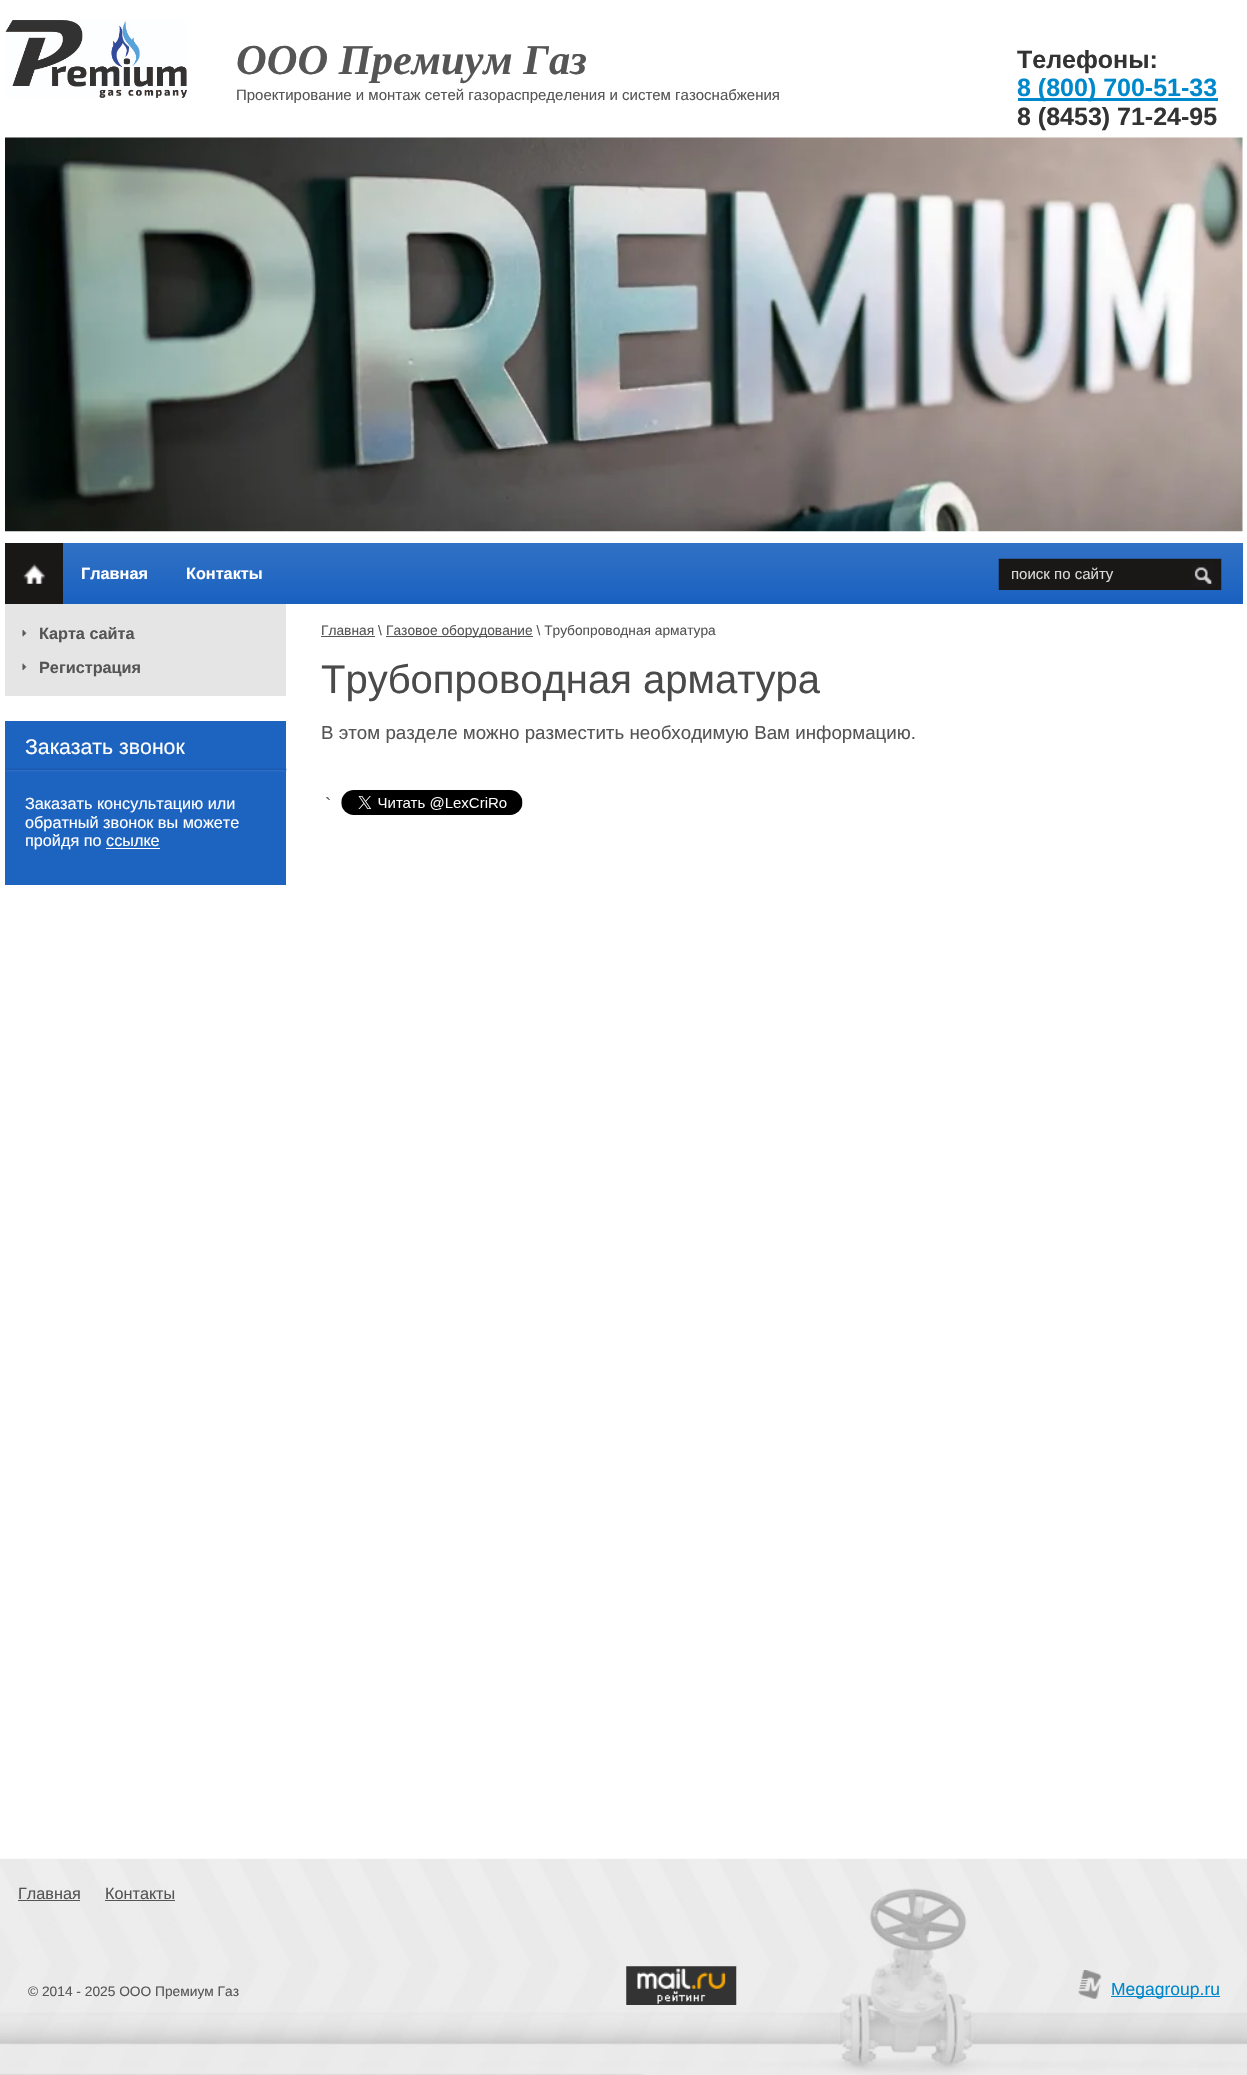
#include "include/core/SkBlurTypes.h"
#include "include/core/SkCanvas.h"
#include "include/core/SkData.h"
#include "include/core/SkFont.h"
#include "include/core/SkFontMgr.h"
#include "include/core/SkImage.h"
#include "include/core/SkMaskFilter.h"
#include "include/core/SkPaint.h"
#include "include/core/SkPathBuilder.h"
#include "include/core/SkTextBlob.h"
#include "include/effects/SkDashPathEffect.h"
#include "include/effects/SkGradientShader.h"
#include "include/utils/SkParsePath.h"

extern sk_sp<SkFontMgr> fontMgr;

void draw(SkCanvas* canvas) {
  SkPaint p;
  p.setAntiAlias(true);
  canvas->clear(SK_ColorWHITE);
  canvas->drawImageRect(SkImages::DeferredFromEncodedData(SkData::MakeFromFileName("images/1.png")), SkRect::MakeLTRB(5, 20, 187, 98), SkSamplingOptions());
  p.setColor(SkColorSetRGB(0, 136, 204));
  canvas->drawRect(SkRect::MakeLTRB(1018, 98, 1218, 101), p);
  canvas->drawImageRect(SkImages::DeferredFromEncodedData(SkData::MakeFromFileName("images/2.png")), SkRect::MakeLTRB(5, 137, 1243, 532), SkSamplingOptions());
  {
    const SkColor colors[] = {SkColorSetRGB(50, 114, 198), SkColorSetRGB(25, 97, 191)};
    const float stops[] = {0, 1};
    const SkPoint ends[] = {{624, 542}, {624, 604}};
    p.setShader(SkGradientShader::MakeLinear(ends, colors, stops, 2, SkTileMode::kClamp));
    p.setAlpha(255);
  }
  canvas->drawRect(SkRect::MakeLTRB(63, 543, 1243, 604), p);
  p.setShader(nullptr);
  p.setColor(SkColorSetRGB(26, 23, 23));
  canvas->drawRect(SkRect::MakeLTRB(5, 543, 63, 604), p);
  canvas->drawImageRect(SkImages::DeferredFromEncodedData(SkData::MakeFromFileName("images/3.png")), SkRect::MakeLTRB(23, 563, 45, 584), SkSamplingOptions());
  canvas->drawImageRect(SkImages::DeferredFromEncodedData(SkData::MakeFromFileName("images/4.png")), SkRect::MakeLTRB(998, 558, 1222, 590), SkSamplingOptions());
  p.setColor(SkColorSetRGB(229, 229, 229));
  canvas->drawRect(SkRect::MakeLTRB(5, 604, 286, 696), p);
  canvas->drawImageRect(SkImages::DeferredFromEncodedData(SkData::MakeFromFileName("images/5.png")), SkRect::MakeLTRB(22, 630, 27, 637), SkSamplingOptions());
  canvas->drawImageRect(SkImages::DeferredFromEncodedData(SkData::MakeFromFileName("images/6.png")), SkRect::MakeLTRB(22, 663, 27, 670), SkSamplingOptions());
  p.setColor(SkColorSetRGB(29, 99, 192));
  canvas->drawRect(SkRect::MakeLTRB(5, 721, 286, 885), p);
  canvas->drawImageRect(SkImages::DeferredFromEncodedData(SkData::MakeFromFileName("images/7.png")), SkRect::MakeLTRB(5, 768, 287, 772), SkSamplingOptions());
  p.setColor(SK_ColorWHITE);
  canvas->drawRect(SkRect::MakeLTRB(106, 848, 160, 849), p);
  p.setColor(SkColorSetRGB(85, 85, 85));
  canvas->drawRect(SkRect::MakeLTRB(321, 636, 375, 637), p);
  canvas->drawRect(SkRect::MakeLTRB(386, 636, 533, 637), p);
  canvas->drawImageRect(SkImages::DeferredFromEncodedData(SkData::MakeFromFileName("images/8.png")), SkRect::MakeLTRB(341, 790, 523, 815), SkSamplingOptions());
  canvas->drawImageRect(SkImages::DeferredFromEncodedData(SkData::MakeFromFileName("images/9.png")), SkRect::MakeLTRB(0, 1858, 1247, 2075), SkSamplingOptions());
  canvas->drawRect(SkRect::MakeLTRB(18, 1900, 80, 1901), p);
  canvas->drawRect(SkRect::MakeLTRB(105, 1900, 175, 1901), p);
  canvas->drawImageRect(SkImages::DeferredFromEncodedData(SkData::MakeFromFileName("images/10.png")), SkRect::MakeLTRB(626, 1966, 737, 2005), SkSamplingOptions());
  canvas->drawImageRect(SkImages::DeferredFromEncodedData(SkData::MakeFromFileName("images/11.png")), SkRect::MakeLTRB(1078, 1970, 1102, 1999), SkSamplingOptions());
  p.setColor(SkColorSetRGB(0, 136, 204));
  canvas->drawRect(SkRect::MakeLTRB(1111, 1996, 1220, 1997), p);
  SkFont font1(fontMgr->matchFamilyStyle("Liberation Serif", SkFontStyle::BoldItalic()), 42.5f);
  font1.setSubpixel(true);
  p.setColor(SkColorSetRGB(85, 85, 85));
  canvas->drawString("ООО Премиум Газ", 236, 74, font1, p);
  SkFont font2(fontMgr->matchFamilyStyle("Liberation Sans", SkFontStyle::Bold()), 25);
  font2.setSubpixel(true);
  p.setColor(SkColorSetRGB(51, 51, 51));
  canvas->drawString("Телефоны:", 1017, 68, font2, p);
  p.setColor(SkColorSetRGB(0, 136, 204));
  canvas->drawString("8 (800) 700-51-33", 1017, 96, font2, p);
  p.setColor(SkColorSetRGB(51, 51, 51));
  canvas->drawString("8 (8453) 71-24-95", 1017, 125, font2, p);
  SkFont font3(fontMgr->matchFamilyStyle("Liberation Sans", SkFontStyle::Normal()), 15);
  font3.setSubpixel(true);
  p.setColor(SkColorSetRGB(85, 85, 85));
  canvas->drawString("Проектирование и монтаж сетей газораспределения и систем газоснабжения", 236, 100, font3, p);
  SkFont font4(fontMgr->matchFamilyStyle("Liberation Sans", SkFontStyle::Bold()), 16.25f);
  font4.setSubpixel(true);
  p.setColor(SK_ColorWHITE);
  canvas->drawString("Главная", 81, 579, font4, p);
  canvas->drawString("Контакты", 186, 579, font4, p);
  p.setColor(SkColorSetRGB(217, 217, 217));
  canvas->drawString("поиск по сайту", 1011, 579, font3, p);
  p.setColor(SkColorSetRGB(85, 85, 85));
  canvas->drawString("Карта сайта", 39, 639, font4, p);
  canvas->drawString("Регистрация", 39, 673, font4, p);
  SkFont font5(fontMgr->matchFamilyStyle("Liberation Sans", SkFontStyle::Normal()), 21.25f);
  font5.setSubpixel(true);
  p.setColor(SK_ColorWHITE);
  canvas->drawString("Заказать звонок", 25, 754, font5, p);
  SkFont font6(fontMgr->matchFamilyStyle("Liberation Sans", SkFontStyle::Normal()), 16.25f);
  font6.setSubpixel(true);
  canvas->drawString("Заказать консультацию или", 25, 809, font6, p);
  canvas->drawString("обратный звонок вы можете", 25, 828, font6, p);
  canvas->drawString("пройдя по ссылке", 25, 846, font6, p);
  SkFont font7(fontMgr->matchFamilyStyle("Liberation Sans", SkFontStyle::Normal()), 13.75f);
  font7.setSubpixel(true);
  p.setColor(SkColorSetRGB(85, 85, 85));
  canvas->drawString("Главная \\", 321, 635, font7, p);
  canvas->drawString("Газовое оборудование \\ Трубопроводная арматура", 386, 635, font7, p);
  SkFont font8(fontMgr->matchFamilyStyle("Liberation Sans", SkFontStyle::Normal()), 40);
  font8.setSubpixel(true);
  p.setColor(SkColorSetRGB(74, 74, 74));
  canvas->drawString("Трубопроводная арматура", 321, 693, font8, p);
  SkFont font9(fontMgr->matchFamilyStyle("Liberation Sans", SkFontStyle::Normal()), 18.75f);
  font9.setSubpixel(true);
  p.setColor(SkColorSetRGB(85, 85, 85));
  canvas->drawString("В этом разделе можно разместить необходимую Вам информацию.", 321, 739, font9, p);
  canvas->drawString("`", 325, 811, font9, p);
  canvas->drawString("Главная", 18, 1899, font6, p);
  canvas->drawString("Контакты", 105, 1899, font6, p);
  canvas->drawString("© 2014 - 2025 ООО Премиум Газ", 28, 1996, font7, p);
  SkFont font10(fontMgr->matchFamilyStyle("Liberation Sans", SkFontStyle::Normal()), 17.5f);
  font10.setSubpixel(true);
  p.setColor(SkColorSetRGB(0, 136, 204));
  canvas->drawString("Megagroup.ru", 1111, 1995, font10, p);
}
